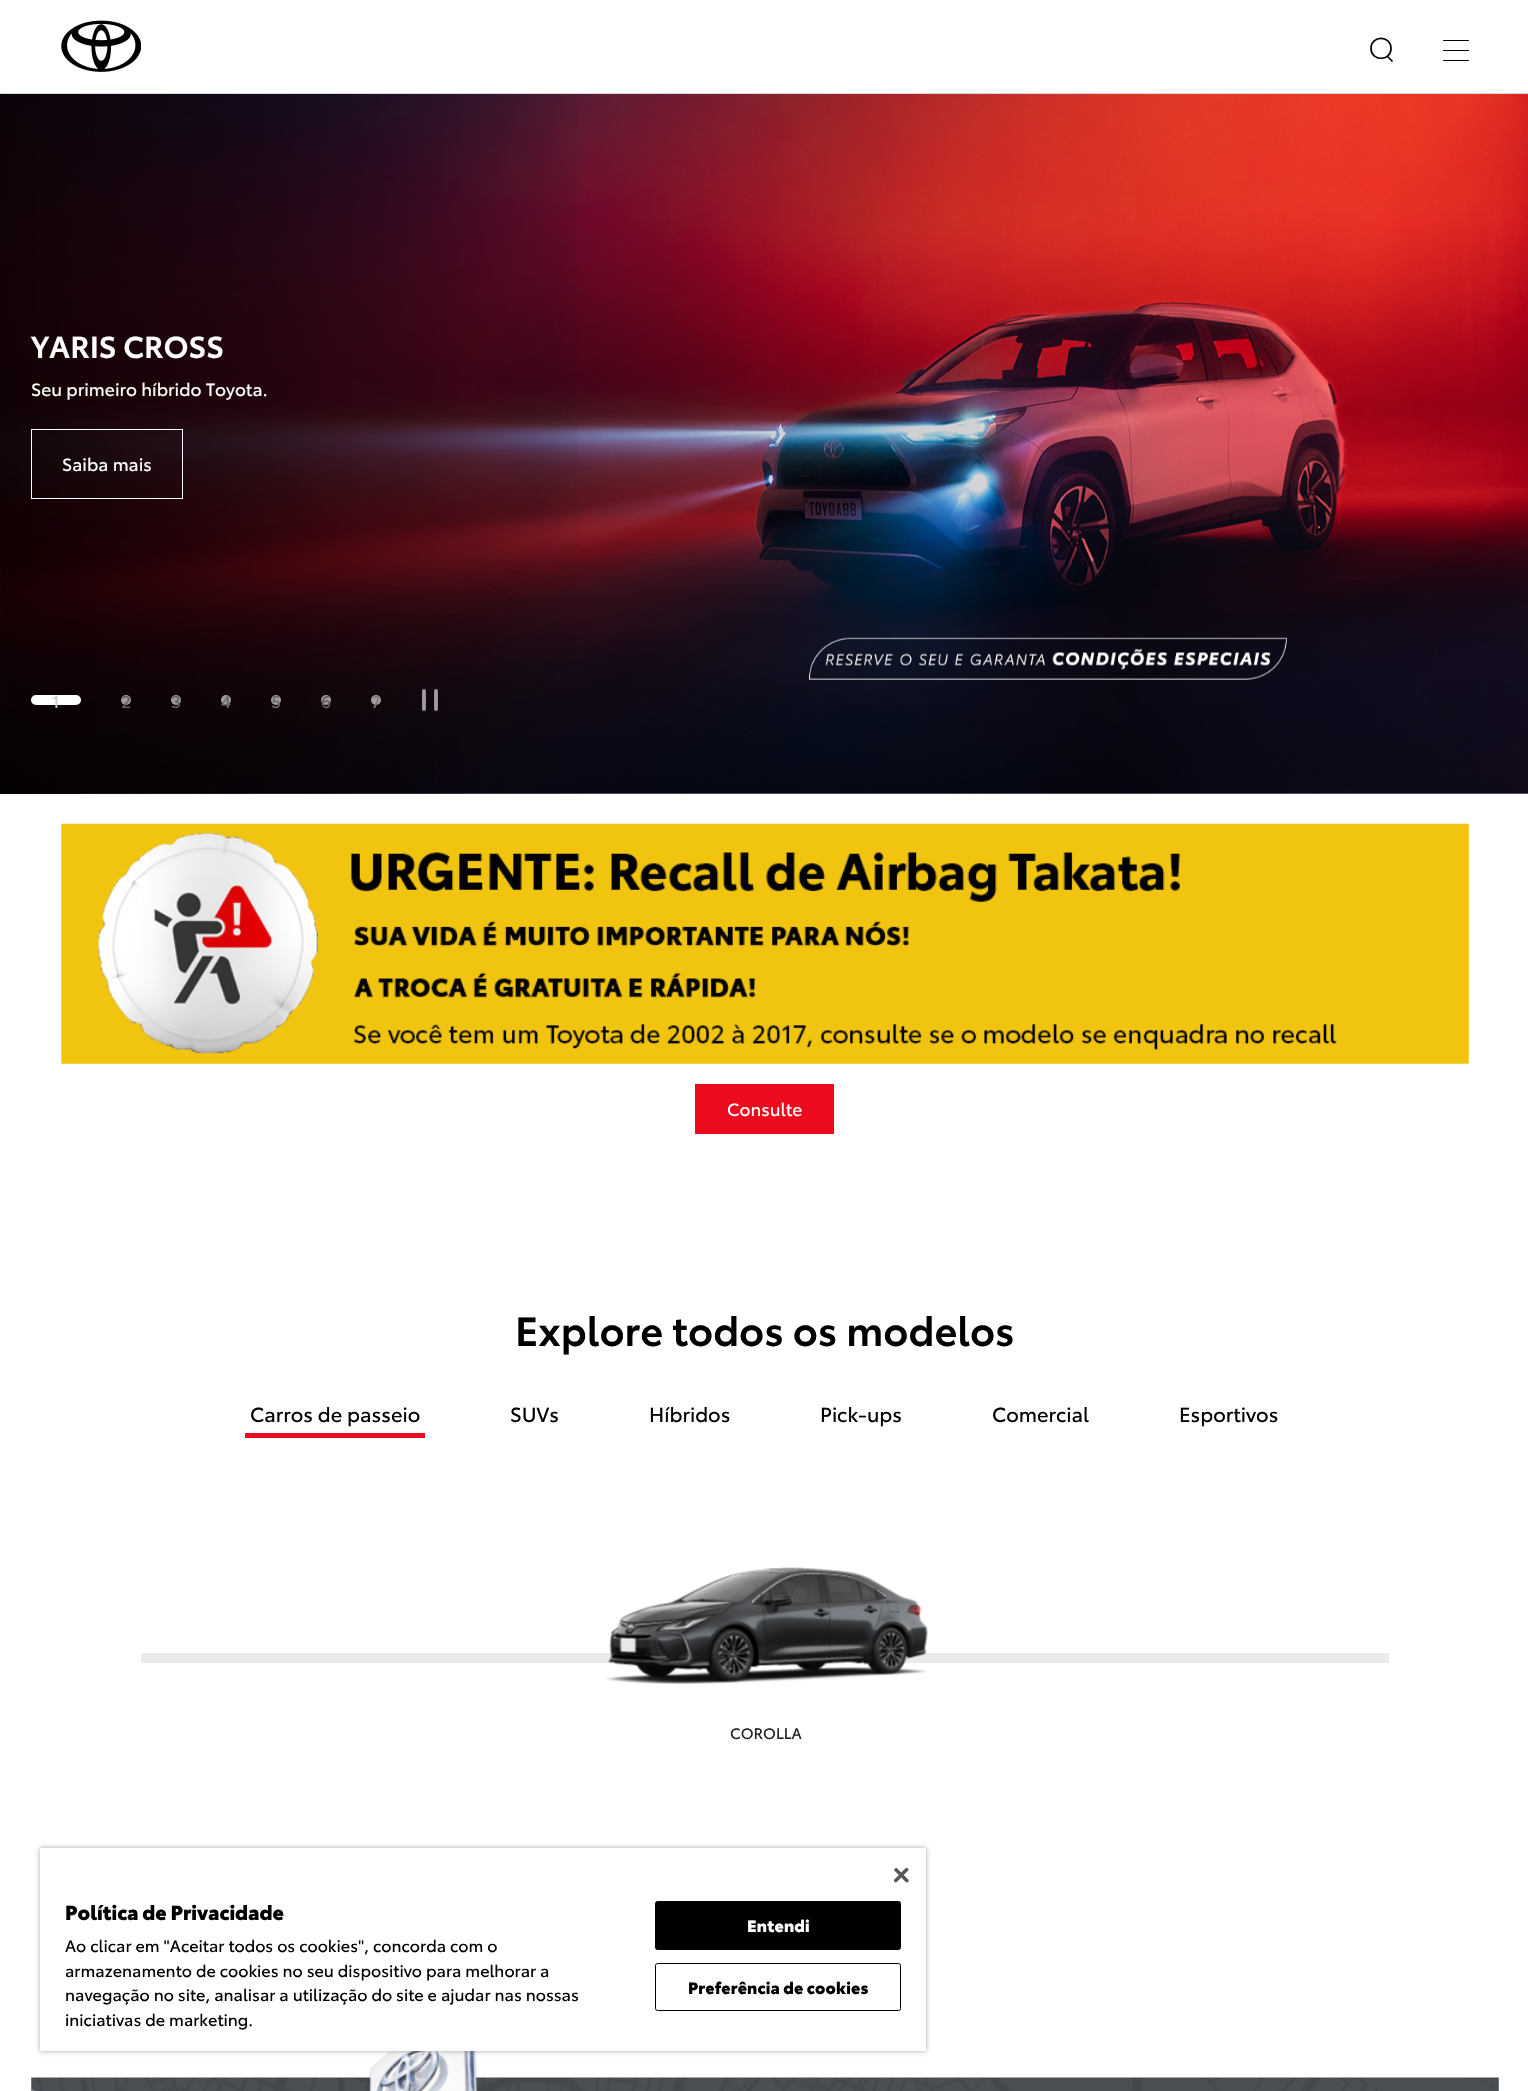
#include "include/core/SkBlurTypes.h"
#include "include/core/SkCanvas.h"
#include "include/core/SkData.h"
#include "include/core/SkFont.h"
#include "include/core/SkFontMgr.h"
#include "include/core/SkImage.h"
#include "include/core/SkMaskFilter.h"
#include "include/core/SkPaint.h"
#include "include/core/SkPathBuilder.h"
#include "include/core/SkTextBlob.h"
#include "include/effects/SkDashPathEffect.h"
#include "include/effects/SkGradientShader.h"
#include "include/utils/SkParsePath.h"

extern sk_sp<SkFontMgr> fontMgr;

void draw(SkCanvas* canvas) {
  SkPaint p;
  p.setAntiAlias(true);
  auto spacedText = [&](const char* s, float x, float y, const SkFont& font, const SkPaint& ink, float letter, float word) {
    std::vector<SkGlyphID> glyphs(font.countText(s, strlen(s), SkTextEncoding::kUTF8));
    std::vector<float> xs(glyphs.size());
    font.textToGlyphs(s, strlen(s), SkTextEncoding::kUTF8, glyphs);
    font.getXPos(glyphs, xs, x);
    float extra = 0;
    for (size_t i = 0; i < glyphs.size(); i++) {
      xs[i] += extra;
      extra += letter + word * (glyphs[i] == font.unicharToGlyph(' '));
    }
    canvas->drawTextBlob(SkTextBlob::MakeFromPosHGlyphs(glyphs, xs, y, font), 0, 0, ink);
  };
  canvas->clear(SK_ColorWHITE);
  p.setColor(SkColorSetRGB(215, 215, 215));
  canvas->drawRect(SkRect::MakeLTRB(0, 93, 1528, 94), p);
  canvas->drawImageRect(SkImages::DeferredFromEncodedData(SkData::MakeFromFileName("images/1.png")), SkRect::MakeLTRB(61, 20, 141, 72), SkSamplingOptions());
  p.setStyle(SkPaint::kStroke_Style);
  p.setStrokeWidth(1.7f);
  p.setColor(SK_ColorBLACK);
  canvas->drawPath(SkPathBuilder().moveTo(1387.5f, 56.5f).lineTo(1392.5f, 61.5f).moveTo(1371, 48.5f).cubicTo(1371, 35, 1391, 35, 1391, 48.5f).cubicTo(1391, 61.5f, 1371, 61.5f, 1371, 48.5f).close().detach(), p);
  p.setStyle(SkPaint::kFill_Style);
  canvas->drawRect(SkRect::MakeLTRB(1443, 50, 1469, 51), p);
  canvas->drawRoundRect(SkRect::MakeLTRB(1443, 40, 1469, 41), 0.5f, 0.5f, p);
  canvas->drawRoundRect(SkRect::MakeLTRB(1443, 60, 1469, 61), 0.5f, 0.5f, p);
  canvas->drawImageRect(SkImages::DeferredFromEncodedData(SkData::MakeFromFileName("images/2.png")), SkRect::MakeLTRB(0, 94, 1528, 794), SkSamplingOptions());
  {
    const SkColor colors[] = {SkColorSetARGB(0, 0, 0, 0), SkColorSetARGB(184, 0, 0, 0), SK_ColorBLACK};
    const float stops[] = {0.02f, 0.51f, 1};
    const SkPoint ends[] = {{631, 443}, {-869, 444}};
    p.setShader(SkGradientShader::MakeLinear(ends, colors, stops, 3, SkTileMode::kClamp));
    p.setAlpha(255);
  }
  canvas->drawRect(SkRect::MakeLTRB(0, 94, 579, 794), p);
  canvas->drawRect(SkRect::MakeLTRB(0, 94, 579, 794), p);
  p.setStyle(SkPaint::kStroke_Style);
  p.setStrokeWidth(1);
  p.setShader(nullptr);
  p.setColor(SK_ColorWHITE);
  canvas->drawRect(SkRect::MakeLTRB(31.5f, 429.5f, 182.5f, 498.5f), p);
  p.setStyle(SkPaint::kFill_Style);
  canvas->drawRoundRect(SkRect::MakeLTRB(31, 695, 81, 705), 5, 5, p);
  p.setColor(SkColorSetRGB(158, 154, 155));
  canvas->drawCircle(126, 700, 5, p);
  p.setColor(SkColorSetRGB(159, 154, 155));
  canvas->drawCircle(176, 700, 5, p);
  p.setColor(SkColorSetRGB(159, 154, 156));
  canvas->drawCircle(226, 700, 5, p);
  canvas->drawCircle(276, 700, 5, p);
  p.setColor(SkColorSetRGB(159, 155, 157));
  canvas->drawCircle(326, 700, 5, p);
  p.setColor(SkColorSetARGB(153, 255, 255, 255));
  canvas->drawCircle(376, 700, 5, p);
  p.setStyle(SkPaint::kStroke_Style);
  p.setStrokeWidth(3.8f);
  p.setStrokeCap(SkPaint::kRound_Cap);
  p.setStrokeJoin(SkPaint::kRound_Join);
  canvas->drawPath(SkPathBuilder().moveTo(424, 709).lineTo(424, 691).moveTo(436, 709).lineTo(436, 691).detach(), p);
  canvas->drawImageRect(SkImages::DeferredFromEncodedData(SkData::MakeFromFileName("images/3.png")), SkRect::MakeLTRB(61, 823, 1469, 1064), SkSamplingOptions());
  p.setStyle(SkPaint::kFill_Style);
  p.setColor(SkColorSetRGB(235, 10, 30));
  canvas->drawRect(SkRect::MakeLTRB(695, 1084, 834, 1134), p);
  canvas->drawRect(SkRect::MakeLTRB(245, 1433, 425, 1438), p);
  p.setColor(SkColorSetRGB(234, 234, 234));
  canvas->drawRect(SkRect::MakeLTRB(141, 1653, 1389, 1663), p);
  canvas->drawImageRect(SkImages::DeferredFromEncodedData(SkData::MakeFromFileName("images/4.png")), SkRect::MakeLTRB(606, 1567, 928, 1685), SkSamplingOptions());
  canvas->drawImageRect(SkImages::DeferredFromEncodedData(SkData::MakeFromFileName("images/5.png")), SkRect::MakeLTRB(31, 2077, 1499, 2091), SkSamplingOptions());
  canvas->drawImageRect(SkImages::DeferredFromEncodedData(SkData::MakeFromFileName("images/6.png")), SkRect::MakeLTRB(31, 2051, 478, 2091), SkSamplingOptions());
  p.setColor(SkColorSetARGB(89, 0, 0, 0));
  p.setMaskFilter(SkMaskFilter::MakeBlur(kNormal_SkBlurStyle, 2.5f));
  canvas->drawRect(SkRect::MakeLTRB(40, 1848, 926, 2051), p);
  p.setMaskFilter(nullptr);
  p.setColor(SK_ColorWHITE);
  canvas->drawRect(SkRect::MakeLTRB(40, 1848, 926, 2051), p);
  canvas->drawImageRect(SkImages::DeferredFromEncodedData(SkData::MakeFromFileName("images/7.png")), SkRect::MakeLTRB(894, 1868, 909, 1883), SkSamplingOptions());
  p.setColor(SK_ColorBLACK);
  canvas->drawRoundRect(SkRect::MakeLTRB(655.5f, 1901.5f, 900.5f, 1949.5f), 2, 2, p);
  p.setStyle(SkPaint::kStroke_Style);
  p.setStrokeWidth(1);
  p.setStrokeCap(SkPaint::kButt_Cap);
  p.setStrokeJoin(SkPaint::kMiter_Join);
  canvas->drawRoundRect(SkRect::MakeLTRB(655.5f, 1901.5f, 900.5f, 1949.5f), 2, 2, p);
  canvas->drawRoundRect(SkRect::MakeLTRB(655.5f, 1963.5f, 900.5f, 2010.5f), 2, 2, p);
  SkFont font1(fontMgr->matchFamilyStyle("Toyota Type", SkFontStyle(600, SkFontStyle::kNormal_Width, SkFontStyle::kUpright_Slant)), 30);
  font1.setSubpixel(true);
  p.setStyle(SkPaint::kFill_Style);
  p.setColor(SK_ColorWHITE);
  canvas->drawString("YARIS CROSS", 31, 358, font1, p);
  SkFont font2(fontMgr->matchFamilyStyle("Toyota Type", SkFontStyle::Normal()), 17.5f);
  font2.setSubpixel(true);
  canvas->drawString("Seu primeiro híbrido Toyota.", 31, 396, font2, p);
  canvas->drawString("Saiba mais", 62, 471, font2, p);
  SkFont font3(fontMgr->matchFamilyStyle("Toyota Type", SkFontStyle::Normal()), 17);
  font3.setSubpixel(true);
  p.setColor(SkColorSetRGB(205, 203, 204));
  canvas->drawString("1", 52, 708, font3, p);
  p.setColor(SkColorSetRGB(99, 93, 95));
  canvas->drawString("2", 121, 708, font3, p);
  canvas->drawString("3", 171, 708, font3, p);
  p.setColor(SkColorSetRGB(110, 102, 105));
  canvas->drawString("4", 221, 708, font3, p);
  canvas->drawString("5", 271, 708, font3, p);
  p.setColor(SkColorSetRGB(99, 93, 95));
  canvas->drawString("6", 321, 708, font3, p);
  p.setColor(SkColorSetRGB(126, 120, 124));
  canvas->drawString("7", 371, 708, font3, p);
  p.setColor(SK_ColorWHITE);
  canvas->drawString("Consulte", 727, 1116, font2, p);
  SkFont font4(fontMgr->matchFamilyStyle("Toyota Type", SkFontStyle(600, SkFontStyle::kNormal_Width, SkFontStyle::kUpright_Slant)), 40);
  font4.setSubpixel(true);
  p.setColor(SK_ColorBLACK);
  canvas->drawString("Explore todos os modelos", 515, 1346, font4, p);
  SkFont font5(fontMgr->matchFamilyStyle("Toyota Type", SkFontStyle::Normal()), 20);
  font5.setSubpixel(true);
  canvas->drawString("Carros de passeio", 250, 1422, font5, p);
  canvas->drawString("SUVs", 510, 1422, font5, p);
  canvas->drawString("Híbridos", 649, 1422, font5, p);
  canvas->drawString("Pick-ups", 820, 1422, font5, p);
  canvas->drawString("Comercial", 992, 1422, font5, p);
  canvas->drawString("Esportivos", 1179, 1422, font5, p);
  SkFont font6(fontMgr->matchFamilyStyle("Toyota Type", SkFontStyle::Normal()), 15);
  font6.setSubpixel(true);
  p.setColor(SkColorSetRGB(34, 34, 34));
  canvas->drawString("COROLLA", 730, 1739, font6, p);
  SkFont font7(fontMgr->matchFamilyStyle("Toyota Type", SkFontStyle(900, SkFontStyle::kNormal_Width, SkFontStyle::kUpright_Slant)), 20);
  font7.setSubpixel(true);
  p.setColor(SK_ColorBLACK);
  canvas->drawString("Política de Privacidade", 65, 1920, font7, p);
  SkFont font8(fontMgr->matchFamilyStyle("Toyota Type", SkFontStyle::Normal()), 16.25f);
  font8.setSubpixel(true);
  canvas->drawString("Ao clicar em \"Aceitar todos os cookies\", concorda com o", 65, 1952, font8, p);
  canvas->drawString("armazenamento de cookies no seu dispositivo para melhorar a", 65, 1977, font8, p);
  canvas->drawString("navegação no site, analisar a utilização do site e ajudar nas nossas", 65, 2001, font8, p);
  canvas->drawString("iniciativas de marketing.", 65, 2026, font8, p);
  SkFont font9(fontMgr->matchFamilyStyle("Toyota Type", SkFontStyle(900, SkFontStyle::kNormal_Width, SkFontStyle::kUpright_Slant)), 16.25f);
  font9.setSubpixel(true);
  p.setColor(SK_ColorWHITE);
  spacedText("Entendi", 747, 1932, font9, p, 0.2f, 0);
  p.setColor(SK_ColorBLACK);
  spacedText("Preferência de cookies", 688, 1994, font9, p, 0.2f, 0);
}
